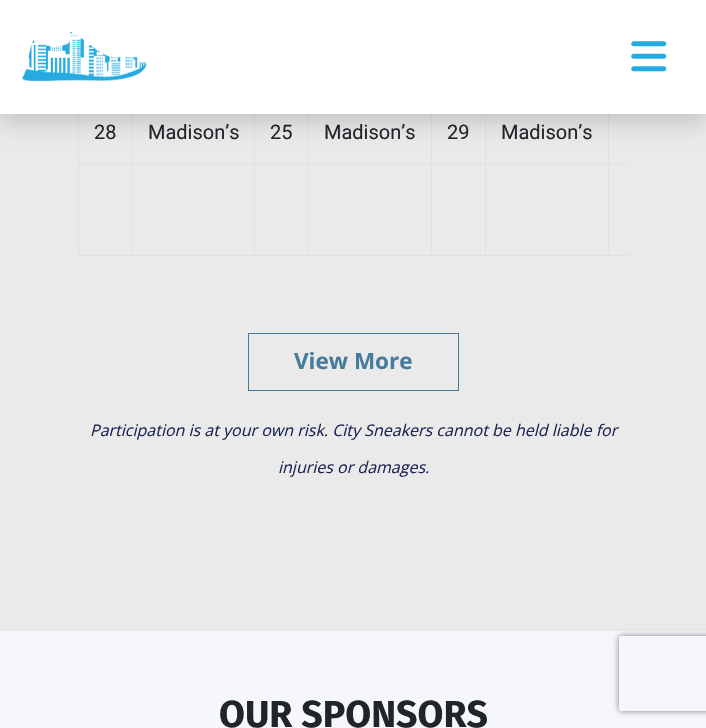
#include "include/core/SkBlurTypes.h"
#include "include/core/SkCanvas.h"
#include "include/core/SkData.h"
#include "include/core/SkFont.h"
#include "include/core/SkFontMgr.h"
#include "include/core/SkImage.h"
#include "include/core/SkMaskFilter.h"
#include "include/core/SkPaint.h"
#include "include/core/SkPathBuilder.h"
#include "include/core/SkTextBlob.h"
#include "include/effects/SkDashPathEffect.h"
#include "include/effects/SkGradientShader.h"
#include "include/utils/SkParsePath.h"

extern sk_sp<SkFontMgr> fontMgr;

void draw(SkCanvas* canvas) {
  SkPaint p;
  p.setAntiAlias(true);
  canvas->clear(SkColorSetRGB(234, 234, 234));
  p.setColor(SkColorSetRGB(222, 226, 230));
  canvas->drawRect(SkRect::MakeLTRB(608, 164, 629, 165), p);
  canvas->drawRect(SkRect::MakeLTRB(608, 255, 629, 256), p);
  canvas->drawRect(SkRect::MakeLTRB(608, 164, 609, 256), p);
  canvas->drawRect(SkRect::MakeLTRB(485, 164, 609, 165), p);
  canvas->drawRect(SkRect::MakeLTRB(485, 255, 609, 256), p);
  canvas->drawRect(SkRect::MakeLTRB(485, 164, 486, 256), p);
  canvas->drawRect(SkRect::MakeLTRB(431, 164, 486, 165), p);
  canvas->drawRect(SkRect::MakeLTRB(431, 255, 486, 256), p);
  canvas->drawRect(SkRect::MakeLTRB(431, 164, 432, 256), p);
  canvas->drawRect(SkRect::MakeLTRB(308, 164, 433, 165), p);
  canvas->drawRect(SkRect::MakeLTRB(308, 255, 433, 256), p);
  canvas->drawRect(SkRect::MakeLTRB(308, 164, 309, 256), p);
  canvas->drawRect(SkRect::MakeLTRB(254, 164, 309, 165), p);
  canvas->drawRect(SkRect::MakeLTRB(254, 255, 309, 256), p);
  canvas->drawRect(SkRect::MakeLTRB(254, 164, 255, 256), p);
  canvas->drawRect(SkRect::MakeLTRB(131, 164, 255, 165), p);
  canvas->drawRect(SkRect::MakeLTRB(131, 255, 255, 256), p);
  canvas->drawRect(SkRect::MakeLTRB(131, 164, 132, 256), p);
  canvas->drawRect(SkRect::MakeLTRB(78, 164, 133, 165), p);
  canvas->drawRect(SkRect::MakeLTRB(78, 255, 133, 256), p);
  canvas->drawRect(SkRect::MakeLTRB(78, 114, 79, 256), p);
  canvas->drawRect(SkRect::MakeLTRB(131, 114, 132, 165), p);
  canvas->drawRect(SkRect::MakeLTRB(254, 114, 255, 165), p);
  canvas->drawRect(SkRect::MakeLTRB(308, 114, 309, 165), p);
  canvas->drawRect(SkRect::MakeLTRB(431, 114, 432, 165), p);
  canvas->drawRect(SkRect::MakeLTRB(485, 114, 486, 165), p);
  canvas->drawRect(SkRect::MakeLTRB(608, 114, 609, 165), p);
  p.setColor(SkColorSetARGB(38, 0, 0, 0));
  p.setMaskFilter(SkMaskFilter::MakeBlur(kNormal_SkBlurStyle, 10));
  canvas->drawRect(SkRect::MakeLTRB(0, 10, 706, 124), p);
  p.setMaskFilter(nullptr);
  p.setColor(SK_ColorWHITE);
  canvas->drawRect(SkRect::MakeLTRB(0, 0, 706, 114), p);
  canvas->drawImageRect(SkImages::DeferredFromEncodedData(SkData::MakeFromFileName("images/1.png")), SkRect::MakeLTRB(22, 31, 147, 82), SkSamplingOptions());
  canvas->drawImageRect(SkImages::DeferredFromEncodedData(SkData::MakeFromFileName("images/2.png")), SkRect::MakeLTRB(631, 41, 667, 72), SkSamplingOptions());
  p.setStyle(SkPaint::kStroke_Style);
  p.setStrokeWidth(1);
  p.setColor(SkColorSetRGB(69, 123, 157));
  canvas->drawRect(SkRect::MakeLTRB(248.5f, 333.5f, 458.5f, 390.5f), p);
  p.setStyle(SkPaint::kFill_Style);
  p.setColor(SkColorSetRGB(246, 247, 252));
  canvas->drawRect(SkRect::MakeLTRB(0, 631, 706, 728), p);
  canvas->save();
  canvas->clipPath(SkPathBuilder(SkPathFillType::kEvenOdd).moveTo(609, 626).lineTo(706, 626).lineTo(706, 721).lineTo(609, 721).close().moveTo(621.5f, 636).lineTo(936.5f, 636).cubicTo(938, 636, 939, 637, 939, 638.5f).lineTo(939, 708.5f).cubicTo(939, 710, 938, 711, 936.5f, 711).lineTo(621.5f, 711).cubicTo(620, 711, 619, 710, 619, 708.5f).lineTo(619, 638.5f).cubicTo(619, 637, 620, 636, 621.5f, 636).close().detach(), true);
  p.setColor(SkColorSetRGB(128, 128, 128));
  p.setMaskFilter(SkMaskFilter::MakeBlur(kNormal_SkBlurStyle, 3));
  canvas->drawRoundRect(SkRect::MakeLTRB(619, 636, 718, 711), 2.5f, 2.5f, p);
  p.setMaskFilter(nullptr);
  canvas->restore();
  SkFont font1(fontMgr->matchFamilyStyle("Roboto", SkFontStyle::Normal()), 20);
  font1.setSubpixel(true);
  p.setColor(SkColorSetRGB(33, 37, 41));
  canvas->drawString("28", 94, 139, font1, p);
  canvas->drawString("Madison’s", 148, 139, font1, p);
  canvas->drawString("25", 270, 139, font1, p);
  canvas->drawString("Madison’s", 324, 139, font1, p);
  canvas->drawString("29", 447, 139, font1, p);
  canvas->drawString("Madison’s", 501, 139, font1, p);
  SkFont font2(fontMgr->matchFamilyStyle("Open Sans", SkFontStyle::Bold()), 22.5f);
  font2.setSubpixel(true);
  p.setColor(SkColorSetRGB(69, 123, 157));
  canvas->drawString("View More", 294, 369, font2, p);
  SkFont font3(fontMgr->matchFamilyStyle("Open Sans", SkFontStyle::Italic()), 16);
  font3.setSubpixel(true);
  p.setColor(SkColorSetRGB(29, 37, 84));
  canvas->drawString("Participation is at your own risk. City Sneakers cannot be held liable for", 90, 436, font3, p);
  canvas->drawString("injuries or damages.", 278, 473, font3, p);
  SkFont font4(fontMgr->matchFamilyStyle("Fira Sans", SkFontStyle::Bold()), 37.5f);
  font4.setSubpixel(true);
  p.setColor(SkColorSetRGB(33, 37, 41));
  canvas->drawString("OUR SPONSORS", 219, 727, font4, p);
}
